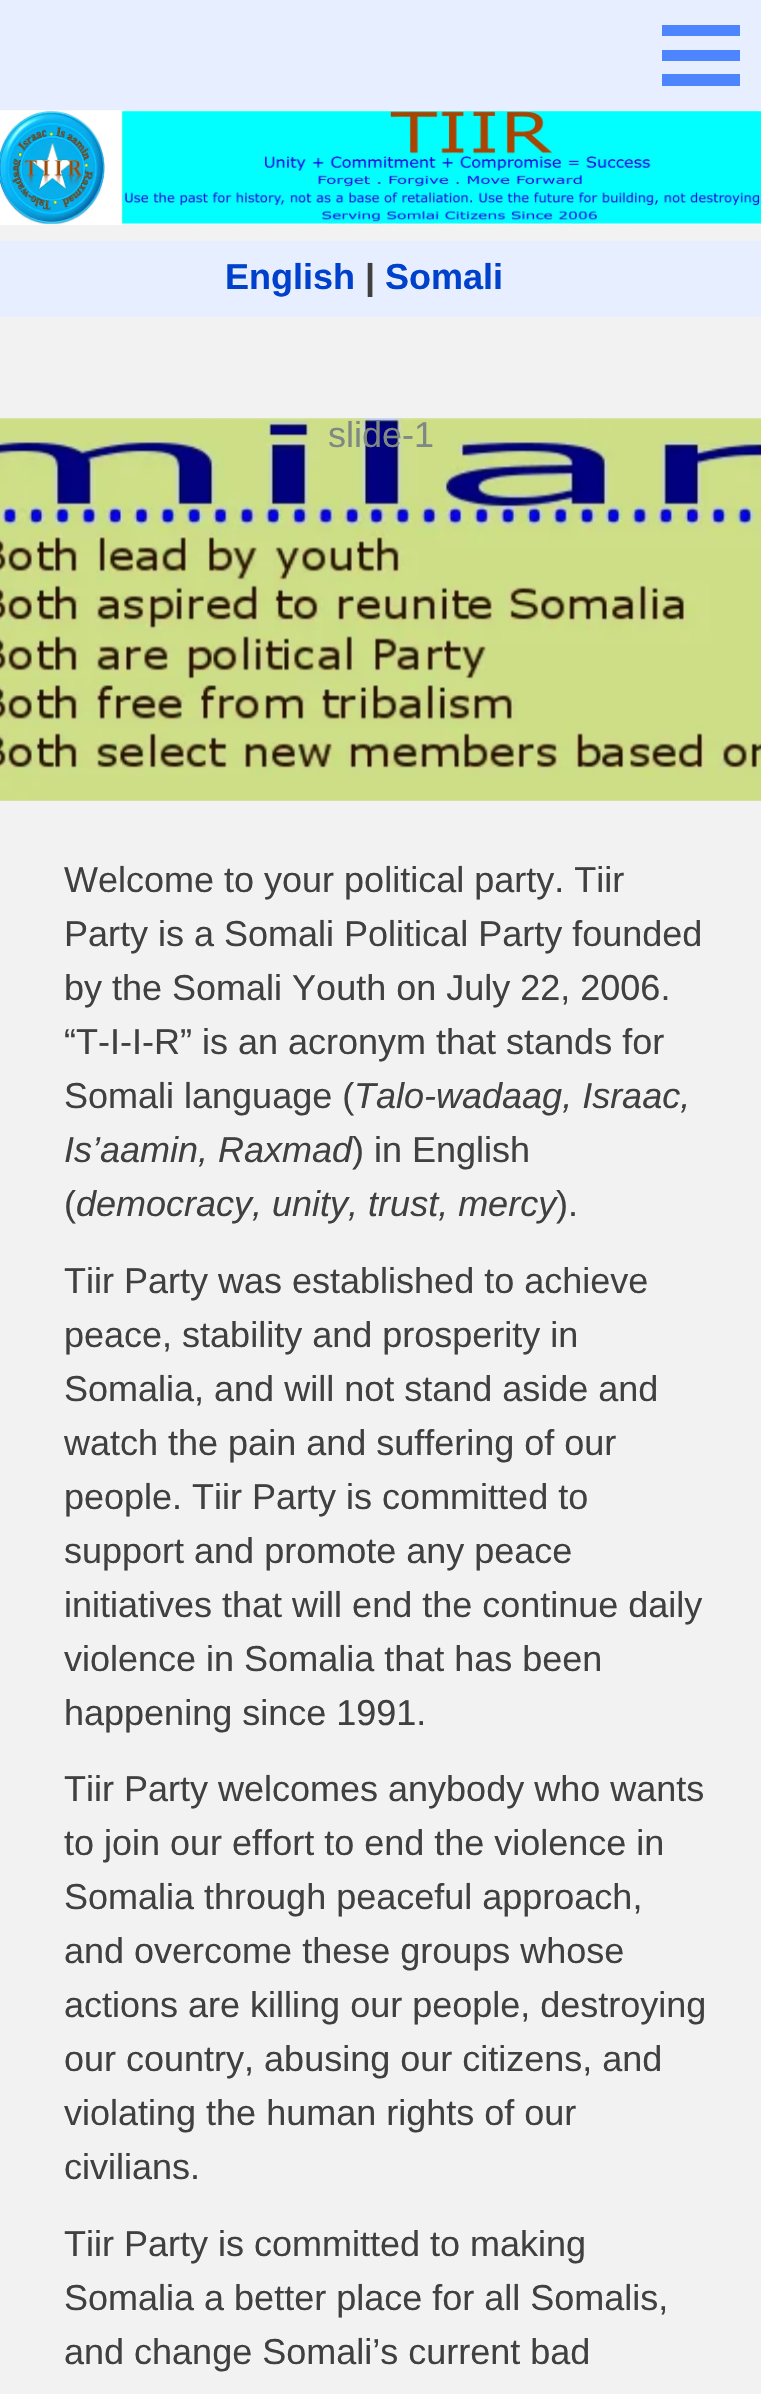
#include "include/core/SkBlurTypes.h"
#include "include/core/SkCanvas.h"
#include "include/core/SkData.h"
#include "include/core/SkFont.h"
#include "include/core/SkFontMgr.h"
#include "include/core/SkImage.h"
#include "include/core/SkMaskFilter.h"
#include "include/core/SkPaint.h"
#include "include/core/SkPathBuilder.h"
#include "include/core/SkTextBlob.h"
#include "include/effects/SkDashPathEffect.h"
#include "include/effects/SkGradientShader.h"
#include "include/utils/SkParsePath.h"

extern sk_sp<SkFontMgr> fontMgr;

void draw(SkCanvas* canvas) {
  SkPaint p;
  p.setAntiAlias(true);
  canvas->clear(SkColorSetRGB(242, 242, 242));
  p.setColor(SkColorSetRGB(230, 238, 255));
  canvas->drawRect(SkRect::MakeLTRB(0, 0, 761, 110), p);
  p.setColor(SkColorSetRGB(77, 133, 255));
  canvas->drawRect(SkRect::MakeLTRB(662, 25, 740, 36), p);
  canvas->drawRect(SkRect::MakeLTRB(662, 50, 740, 61), p);
  canvas->drawRect(SkRect::MakeLTRB(662, 74, 740, 86), p);
  canvas->drawImageRect(SkImages::DeferredFromEncodedData(SkData::MakeFromFileName("images/1.png")), SkRect::MakeLTRB(0, 110, 761, 225), SkSamplingOptions());
  p.setColor(SkColorSetRGB(230, 238, 255));
  canvas->drawRect(SkRect::MakeLTRB(0, 241, 761, 317), p);
  canvas->drawImageRect(SkImages::DeferredFromEncodedData(SkData::MakeFromFileName("images/2.png")), SkRect::MakeLTRB(0, 418, 761, 801), SkSamplingOptions());
  SkFont font1(fontMgr->matchFamilyStyle("Liberation Sans", SkFontStyle::Bold()), 36);
  font1.setSubpixel(true);
  p.setColor(SkColorSetRGB(0, 65, 204));
  canvas->drawString("English", 225, 289, font1, p);
  p.setColor(SkColorSetRGB(64, 64, 64));
  canvas->drawString("|", 365, 289, font1, p);
  p.setColor(SkColorSetRGB(0, 65, 204));
  canvas->drawString("Somali", 385, 289, font1, p);
  SkFont font2(fontMgr->matchFamilyStyle("Liberation Sans", SkFontStyle::Normal()), 36);
  font2.setSubpixel(true);
  p.setColor(SkColorSetRGB(127, 136, 131));
  canvas->drawString("slide-1", 328, 447, font2, p);
  p.setColor(SkColorSetRGB(64, 64, 64));
  canvas->drawString("Welcome to your political party. Tiir", 64, 892, font2, p);
  canvas->drawString("Party is a Somali Political Party founded", 64, 946, font2, p);
  canvas->drawString("by the Somali Youth on July 22, 2006.", 64, 1000, font2, p);
  canvas->drawString("“T-I-I-R” is an acronym that stands for", 64, 1054, font2, p);
  canvas->drawString("Somali language (", 64, 1108, font2, p);
  SkFont font3(fontMgr->matchFamilyStyle("Liberation Sans", SkFontStyle::Italic()), 36);
  font3.setSubpixel(true);
  canvas->drawString("Talo-wadaag, Israac,", 354, 1108, font3, p);
  canvas->drawString("Is’aamin, Raxmad", 64, 1162, font3, p);
  canvas->drawString(") in English", 352, 1162, font2, p);
  canvas->drawString("(", 64, 1216, font2, p);
  canvas->drawString("democracy, unity, trust, mercy", 76, 1216, font3, p);
  canvas->drawString(").", 556, 1216, font2, p);
  canvas->drawString("Tiir Party was established to achieve", 64, 1293, font2, p);
  canvas->drawString("peace, stability and prosperity in", 64, 1347, font2, p);
  canvas->drawString("Somalia, and will not stand aside and", 64, 1401, font2, p);
  canvas->drawString("watch the pain and suffering of our", 64, 1455, font2, p);
  canvas->drawString("people. Tiir Party is committed to", 64, 1509, font2, p);
  canvas->drawString("support and promote any peace", 64, 1563, font2, p);
  canvas->drawString("initiatives that will end the continue daily", 64, 1617, font2, p);
  canvas->drawString("violence in Somalia that has been", 64, 1671, font2, p);
  canvas->drawString("happening since 1991.", 64, 1725, font2, p);
  canvas->drawString("Tiir Party welcomes anybody who wants", 64, 1801, font2, p);
  canvas->drawString("to join our effort to end the violence in", 64, 1855, font2, p);
  canvas->drawString("Somalia through peaceful approach,", 64, 1909, font2, p);
  canvas->drawString("and overcome these groups whose", 64, 1963, font2, p);
  canvas->drawString("actions are killing our people, destroying", 64, 2017, font2, p);
  canvas->drawString("our country, abusing our citizens, and", 64, 2071, font2, p);
  canvas->drawString("violating the human rights of our", 64, 2125, font2, p);
  canvas->drawString("civilians.", 64, 2179, font2, p);
  canvas->drawString("Tiir Party is committed to making", 64, 2256, font2, p);
  canvas->drawString("Somalia a better place for all Somalis,", 64, 2310, font2, p);
  canvas->drawString("and change Somali’s current bad", 64, 2364, font2, p);
}
